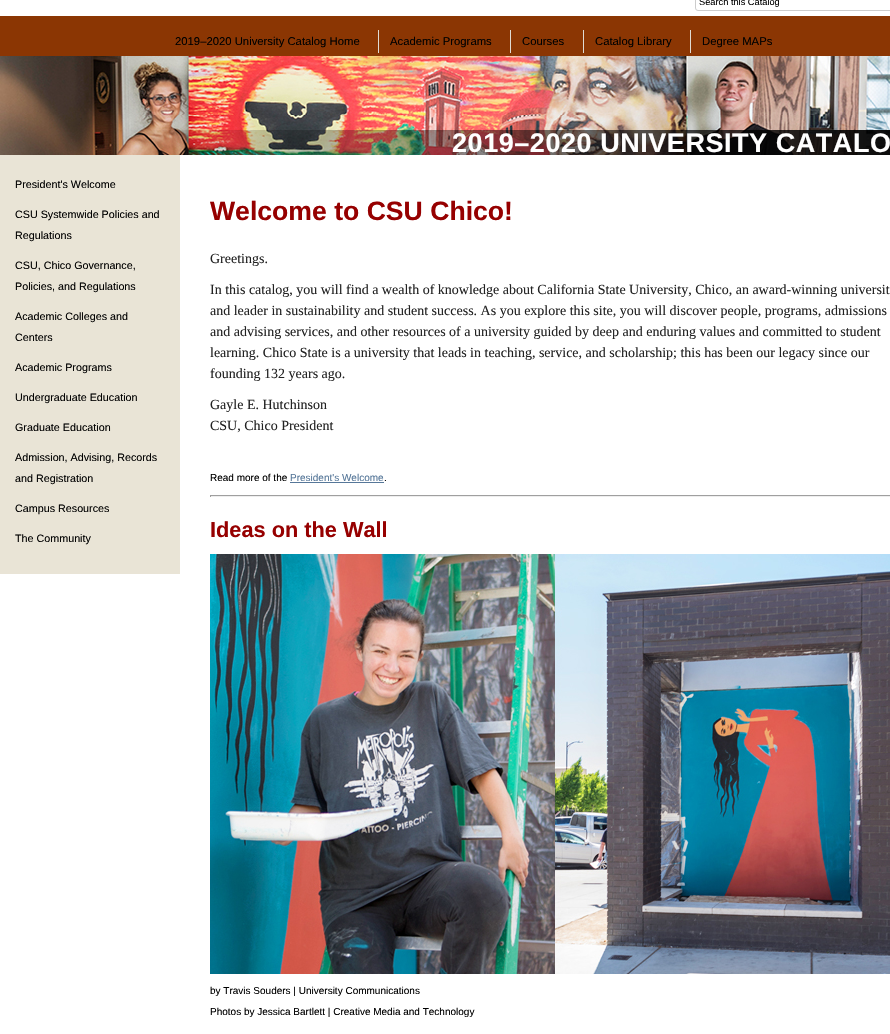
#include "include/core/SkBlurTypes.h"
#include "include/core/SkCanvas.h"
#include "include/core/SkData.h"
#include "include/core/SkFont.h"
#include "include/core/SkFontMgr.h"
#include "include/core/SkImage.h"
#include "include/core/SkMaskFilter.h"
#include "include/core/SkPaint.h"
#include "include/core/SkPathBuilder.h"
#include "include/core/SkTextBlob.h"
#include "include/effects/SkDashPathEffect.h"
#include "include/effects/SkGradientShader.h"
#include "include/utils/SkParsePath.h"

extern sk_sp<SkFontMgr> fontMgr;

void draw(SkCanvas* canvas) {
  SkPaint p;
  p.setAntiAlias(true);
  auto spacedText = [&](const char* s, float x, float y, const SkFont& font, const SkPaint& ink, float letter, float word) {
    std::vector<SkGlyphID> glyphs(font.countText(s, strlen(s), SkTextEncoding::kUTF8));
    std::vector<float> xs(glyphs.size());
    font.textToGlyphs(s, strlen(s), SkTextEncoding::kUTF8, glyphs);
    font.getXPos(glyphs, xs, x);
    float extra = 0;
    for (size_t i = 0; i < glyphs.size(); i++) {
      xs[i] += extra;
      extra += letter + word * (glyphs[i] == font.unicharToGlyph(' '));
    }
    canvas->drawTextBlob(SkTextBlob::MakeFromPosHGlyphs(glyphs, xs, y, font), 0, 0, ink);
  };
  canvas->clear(SkColorSetRGB(139, 54, 3));
  p.setColor(SK_ColorWHITE);
  canvas->drawRect(SkRect::MakeLTRB(0, 0, 890, 16), p);
  p.setStyle(SkPaint::kStroke_Style);
  p.setStrokeWidth(1);
  p.setColor(SkColorSetRGB(204, 204, 204));
  canvas->drawRoundRect(SkRect::MakeLTRB(695.5f, -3.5f, 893.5f, 10.5f), 2.5f, 2.5f, p);
  p.setStyle(SkPaint::kFill_Style);
  p.setColor(SkColorSetRGB(223, 219, 212));
  canvas->drawRect(SkRect::MakeLTRB(378, 30, 379, 53), p);
  canvas->drawRect(SkRect::MakeLTRB(510, 30, 511, 53), p);
  canvas->drawRect(SkRect::MakeLTRB(583, 30, 584, 53), p);
  canvas->drawRect(SkRect::MakeLTRB(690, 30, 691, 53), p);
  canvas->drawImageRect(SkImages::DeferredFromEncodedData(SkData::MakeFromFileName("images/1.png")), SkRect::MakeLTRB(0, 56, 890, 155), SkSamplingOptions());
  p.setColor(SK_ColorWHITE);
  canvas->drawRect(SkRect::MakeLTRB(0, 155, 890, 1034), p);
  p.setColor(SkColorSetRGB(233, 228, 214));
  canvas->drawRect(SkRect::MakeLTRB(0, 155, 180, 574), p);
  p.setColor(SkColorSetRGB(86, 119, 153));
  canvas->drawRect(SkRect::MakeLTRB(290, 482, 384, 483), p);
  p.setColor(SkColorSetRGB(159, 159, 159));
  canvas->drawRect(SkRect::MakeLTRB(210, 495, 890, 496), p);
  p.setColor(SkColorSetRGB(238, 238, 238));
  canvas->drawRect(SkRect::MakeLTRB(210, 496, 890, 497), p);
  p.setColor(SkColorSetRGB(159, 159, 159));
  canvas->drawRect(SkRect::MakeLTRB(210, 495, 211, 497), p);
  canvas->drawImageRect(SkImages::DeferredFromEncodedData(SkData::MakeFromFileName("images/2.png")), SkRect::MakeLTRB(210, 554, 890, 974), SkSamplingOptions());
  SkFont font1(fontMgr->matchFamilyStyle("Liberation Sans", SkFontStyle::Normal()), 9.25f);
  font1.setSubpixel(true);
  p.setColor(SK_ColorBLACK);
  canvas->drawString("Search this Catalog", 699, 5, font1, p);
  SkFont font2(fontMgr->matchFamilyStyle("Liberation Sans", SkFontStyle::Normal()), 11.3f);
  font2.setSubpixel(true);
  canvas->drawString("2019–2020 University Catalog Home", 175, 45, font2, p);
  canvas->drawString("Academic Programs", 390, 45, font2, p);
  canvas->drawString("Courses", 522, 45, font2, p);
  canvas->drawString("Catalog Library", 595, 45, font2, p);
  canvas->drawString("Degree MAPs", 702, 45, font2, p);
  SkFont font3(fontMgr->matchFamilyStyle("Liberation Sans", SkFontStyle::Bold()), 27);
  font3.setSubpixel(true);
  p.setColor(SK_ColorWHITE);
  spacedText("2019–2020 UNIVERSITY CATALO", 452, 152, font3, p, 0.55f, 0);
  SkFont font4(fontMgr->matchFamilyStyle("Liberation Sans", SkFontStyle::Normal()), 10.75f);
  font4.setSubpixel(true);
  p.setColor(SK_ColorBLACK);
  canvas->drawString("President's Welcome", 15, 188, font4, p);
  canvas->drawString("CSU Systemwide Policies and", 15, 218, font4, p);
  canvas->drawString("Regulations", 15, 239, font4, p);
  canvas->drawString("CSU, Chico Governance,", 15, 269, font4, p);
  canvas->drawString("Policies, and Regulations", 15, 290, font4, p);
  canvas->drawString("Academic Colleges and", 15, 320, font4, p);
  canvas->drawString("Centers", 15, 341, font4, p);
  canvas->drawString("Academic Programs", 15, 371, font4, p);
  canvas->drawString("Undergraduate Education", 15, 401, font4, p);
  canvas->drawString("Graduate Education", 15, 431, font4, p);
  canvas->drawString("Admission, Advising, Records", 15, 461, font4, p);
  canvas->drawString("and Registration", 15, 482, font4, p);
  canvas->drawString("Campus Resources", 15, 512, font4, p);
  canvas->drawString("The Community", 15, 542, font4, p);
  SkFont font5(fontMgr->matchFamilyStyle("Liberation Sans", SkFontStyle::Bold()), 26.6f);
  font5.setSubpixel(true);
  p.setColor(SkColorSetRGB(150, 0, 0));
  canvas->drawString("Welcome to CSU Chico!", 210, 220, font5, p);
  SkFont font6(fontMgr->matchFamilyStyle("Liberation Serif", SkFontStyle::Normal()), 14);
  font6.setSubpixel(true);
  p.setColor(SkColorSetRGB(34, 34, 34));
  canvas->drawString("Greetings.", 210, 263, font6, p);
  canvas->drawString("In this catalog, you will find a wealth of knowledge about California State University, Chico, an award-winning universit", 210, 294, font6, p);
  canvas->drawString("and leader in sustainability and student success. As you explore this site, you will discover people, programs, admissions", 210, 315, font6, p);
  canvas->drawString("and advising services, and other resources of a university guided by deep and enduring values and committed to student", 210, 336, font6, p);
  canvas->drawString("learning. Chico State is a university that leads in teaching, service, and scholarship; this has been our legacy since our", 210, 357, font6, p);
  canvas->drawString("founding 132 years ago.", 210, 378, font6, p);
  canvas->drawString("Gayle E. Hutchinson", 210, 409, font6, p);
  canvas->drawString("CSU, Chico President", 210, 430, font6, p);
  SkFont font7(fontMgr->matchFamilyStyle("Liberation Sans", SkFontStyle::Normal()), 10);
  font7.setSubpixel(true);
  p.setColor(SK_ColorBLACK);
  canvas->drawString("Read more of the", 210, 481, font7, p);
  p.setColor(SkColorSetRGB(86, 119, 153));
  canvas->drawString("President's Welcome", 290, 481, font7, p);
  p.setColor(SK_ColorBLACK);
  canvas->drawString(".", 384, 481, font7, p);
  SkFont font8(fontMgr->matchFamilyStyle("Liberation Sans", SkFontStyle::Bold()), 21.75f);
  font8.setSubpixel(true);
  p.setColor(SkColorSetRGB(150, 0, 0));
  canvas->drawString("Ideas on the Wall", 210, 537, font8, p);
  p.setColor(SK_ColorBLACK);
  canvas->drawString("by Travis Souders | University Communications", 210, 994, font7, p);
  canvas->drawString("Photos by Jessica Bartlett | Creative Media and Technology", 210, 1015, font7, p);
}
